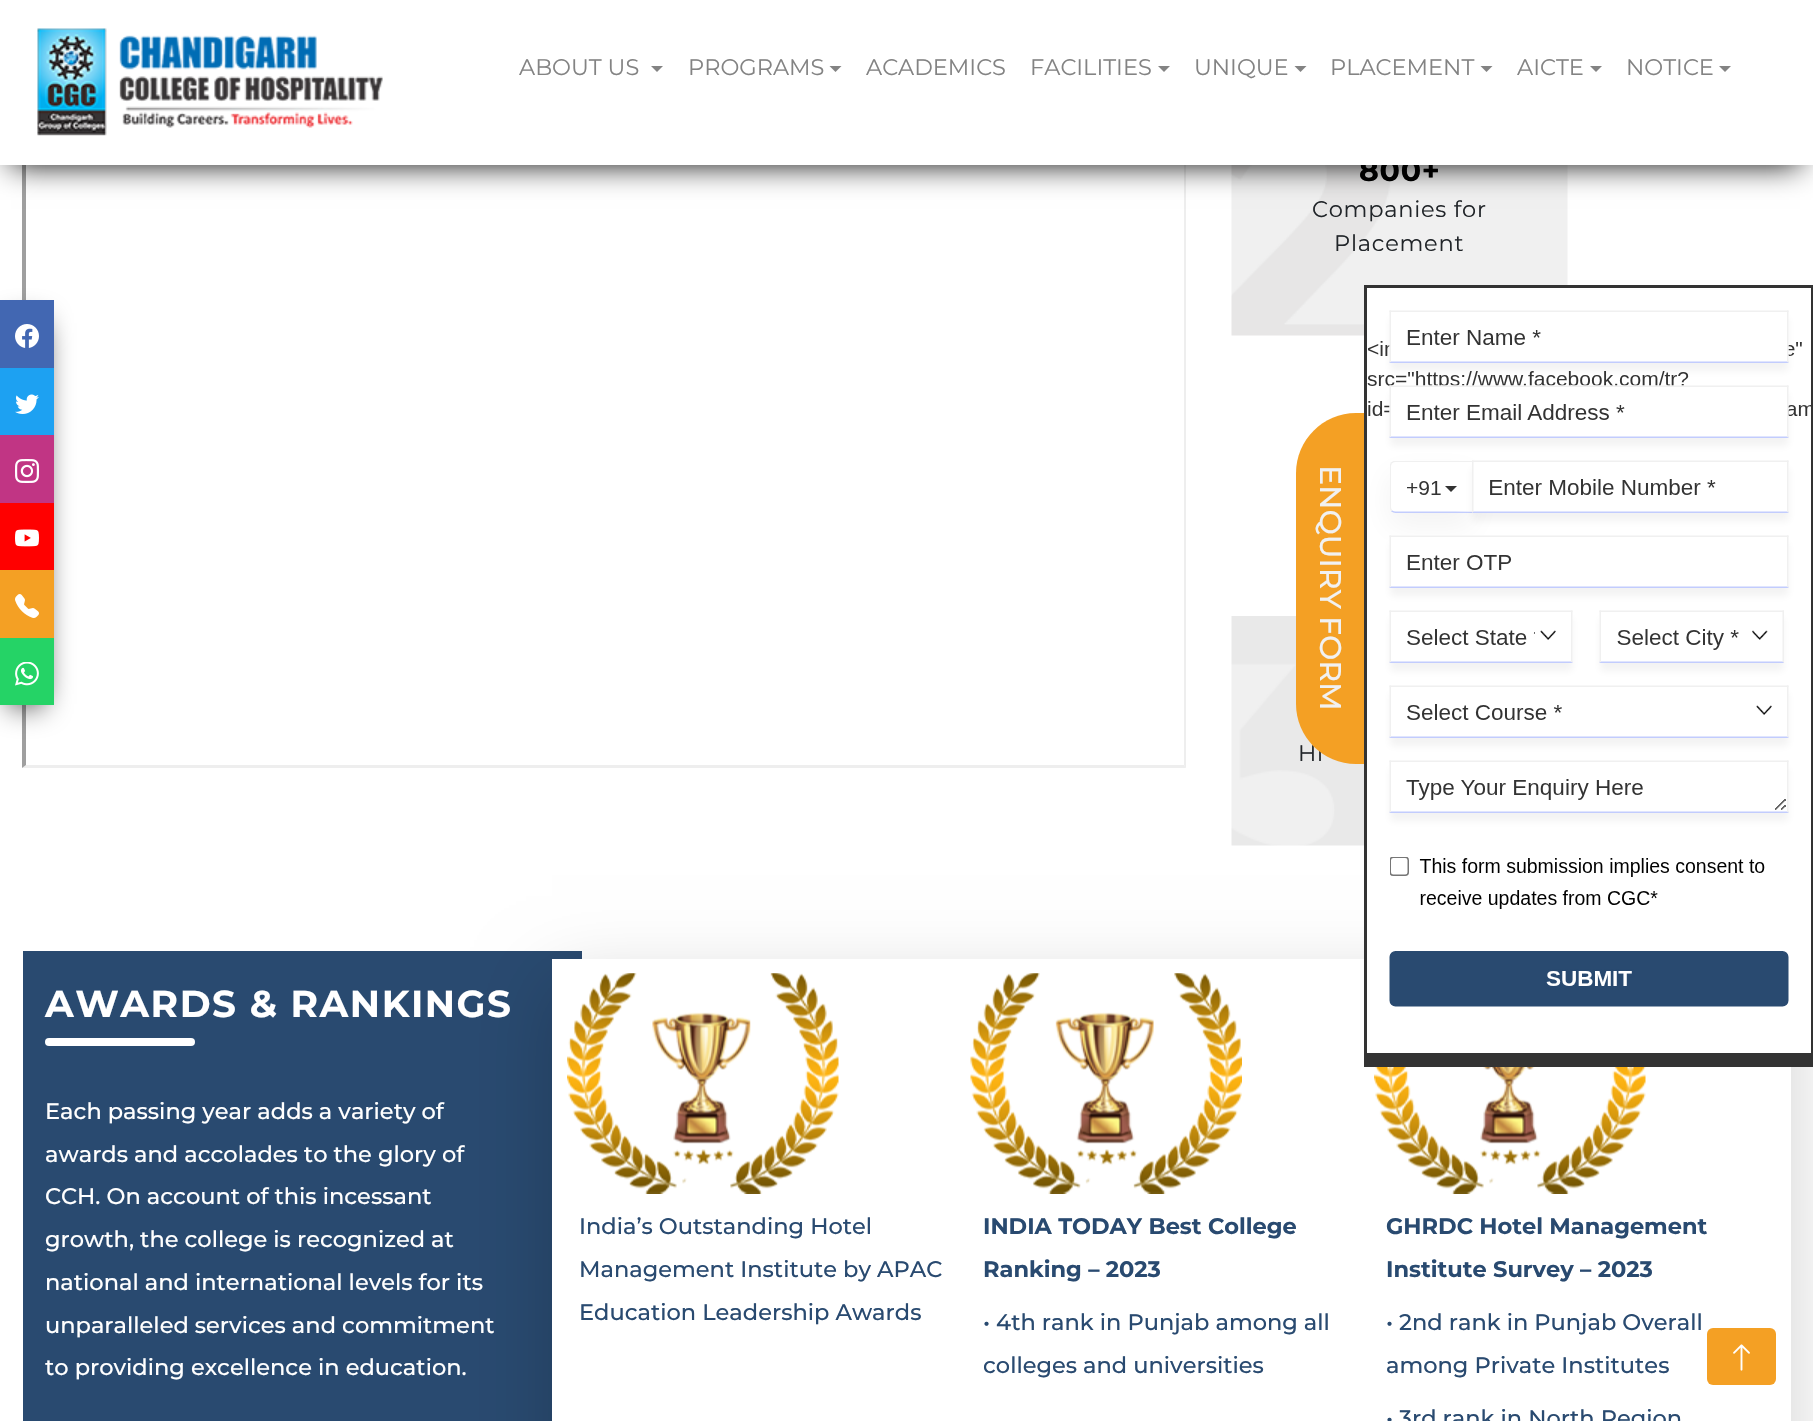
#include "include/core/SkBlurTypes.h"
#include "include/core/SkCanvas.h"
#include "include/core/SkData.h"
#include "include/core/SkFont.h"
#include "include/core/SkFontMgr.h"
#include "include/core/SkImage.h"
#include "include/core/SkMaskFilter.h"
#include "include/core/SkPaint.h"
#include "include/core/SkPathBuilder.h"
#include "include/core/SkTextBlob.h"
#include "include/effects/SkDashPathEffect.h"
#include "include/effects/SkGradientShader.h"
#include "include/utils/SkParsePath.h"

extern sk_sp<SkFontMgr> fontMgr;

void draw(SkCanvas* canvas) {
  SkPaint p;
  p.setAntiAlias(true);
  auto spacedText = [&](const char* s, float x, float y, const SkFont& font, const SkPaint& ink, float letter, float word) {
    std::vector<SkGlyphID> glyphs(font.countText(s, strlen(s), SkTextEncoding::kUTF8));
    std::vector<float> xs(glyphs.size());
    font.textToGlyphs(s, strlen(s), SkTextEncoding::kUTF8, glyphs);
    font.getXPos(glyphs, xs, x);
    float extra = 0;
    for (size_t i = 0; i < glyphs.size(); i++) {
      xs[i] += extra;
      extra += letter + word * (glyphs[i] == font.unicharToGlyph(' '));
    }
    canvas->drawTextBlob(SkTextBlob::MakeFromPosHGlyphs(glyphs, xs, y, font), 0, 0, ink);
  };
  canvas->clear(SK_ColorWHITE);
  p.setColor(SkColorSetRGB(238, 238, 238));
  canvas->drawPath(SkPathBuilder().moveTo(1186, -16).lineTo(1186, 768).lineTo(1184, 765).lineTo(1184, -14).close().detach(), p);
  canvas->drawPath(SkPathBuilder().moveTo(1186, 768).lineTo(22, 768).lineTo(26, 765).lineTo(1184, 765).close().detach(), p);
  p.setColor(SkColorSetRGB(159, 159, 159));
  canvas->drawPath(SkPathBuilder().moveTo(22, 768).lineTo(22, -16).lineTo(26, -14).lineTo(26, 765).close().detach(), p);
  p.setColor(SK_ColorBLACK);
  p.setMaskFilter(SkMaskFilter::MakeBlur(kNormal_SkBlurStyle, 15));
  canvas->drawRect(SkRect::MakeLTRB(11, 323, 41, 704), p);
  p.setMaskFilter(nullptr);
  p.setColor(SkColorSetRGB(66, 103, 178));
  canvas->drawRect(SkRect::MakeLTRB(0, 300, 54, 368), p);
  canvas->drawImageRect(SkImages::DeferredFromEncodedData(SkData::MakeFromFileName("images/1.png")), SkRect::MakeLTRB(15, 324, 39, 348), SkSamplingOptions());
  p.setColor(SkColorSetRGB(29, 161, 242));
  canvas->drawRect(SkRect::MakeLTRB(0, 368, 54, 435), p);
  canvas->drawImageRect(SkImages::DeferredFromEncodedData(SkData::MakeFromFileName("images/2.png")), SkRect::MakeLTRB(15, 394, 39, 414), SkSamplingOptions());
  p.setColor(SkColorSetRGB(193, 53, 132));
  canvas->drawRect(SkRect::MakeLTRB(0, 435, 54, 503), p);
  canvas->drawImageRect(SkImages::DeferredFromEncodedData(SkData::MakeFromFileName("images/3.png")), SkRect::MakeLTRB(15, 459, 39, 483), SkSamplingOptions());
  p.setColor(SkColorSetRGB(255, 0, 0));
  canvas->drawRect(SkRect::MakeLTRB(0, 503, 54, 570), p);
  canvas->drawImageRect(SkImages::DeferredFromEncodedData(SkData::MakeFromFileName("images/4.png")), SkRect::MakeLTRB(15, 529, 39, 547), SkSamplingOptions());
  p.setColor(SkColorSetRGB(244, 160, 36));
  canvas->drawRect(SkRect::MakeLTRB(0, 570, 54, 638), p);
  canvas->drawImageRect(SkImages::DeferredFromEncodedData(SkData::MakeFromFileName("images/5.png")), SkRect::MakeLTRB(15, 594, 39, 618), SkSamplingOptions());
  p.setColor(SkColorSetRGB(37, 211, 102));
  canvas->drawRect(SkRect::MakeLTRB(0, 638, 54, 705), p);
  canvas->drawImageRect(SkImages::DeferredFromEncodedData(SkData::MakeFromFileName("images/6.png")), SkRect::MakeLTRB(15, 662, 39, 686), SkSamplingOptions());
  canvas->drawImageRect(SkImages::DeferredFromEncodedData(SkData::MakeFromFileName("images/9.png")), SkRect::MakeLTRB(1231, 165, 1568, 336), SkSamplingOptions());
  p.setColor(SK_ColorBLACK);
  p.setMaskFilter(SkMaskFilter::MakeBlur(kNormal_SkBlurStyle, 15));
  canvas->drawRect(SkRect::MakeLTRB(11, 23, 1800, 164), p);
  p.setMaskFilter(nullptr);
  p.setColor(SkColorSetRGB(41, 74, 112));
  canvas->drawRect(SkRect::MakeLTRB(23, 951, 582, 1421), p);
  p.setColor(SkColorSetARGB(46, 0, 0, 0));
  p.setMaskFilter(SkMaskFilter::MakeBlur(kNormal_SkBlurStyle, 36));
  canvas->drawRect(SkRect::MakeLTRB(552, 983, 1791, 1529), p);
  p.setMaskFilter(nullptr);
  p.setColor(SK_ColorWHITE);
  canvas->drawRect(SkRect::MakeLTRB(552, 959, 1791, 1421), p);
  p.setColor(SkColorSetRGB(51, 51, 51));
  canvas->drawRect(SkRect::MakeLTRB(1364, 285, 1813, 1067), p);
  canvas->drawImageRect(SkImages::DeferredFromEncodedData(SkData::MakeFromFileName("images/8.png")), SkRect::MakeLTRB(1367, 288, 1811, 1053), SkSamplingOptions());
  canvas->drawImageRect(SkImages::DeferredFromEncodedData(SkData::MakeFromFileName("images/10.png")), SkRect::MakeLTRB(1231, 616, 1364, 846), SkSamplingOptions());
  p.setColor(SK_ColorWHITE);
  canvas->drawRoundRect(SkRect::MakeLTRB(45, 1038, 195, 1046), 4, 4, p);
  canvas->drawImageRect(SkImages::DeferredFromEncodedData(SkData::MakeFromFileName("images/11.png")), SkRect::MakeLTRB(567, 973, 839, 1194), SkSamplingOptions());
  canvas->drawImageRect(SkImages::DeferredFromEncodedData(SkData::MakeFromFileName("images/12.png")), SkRect::MakeLTRB(970, 973, 1242, 1194), SkSamplingOptions());
  canvas->drawImageRect(SkImages::DeferredFromEncodedData(SkData::MakeFromFileName("images/13.png")), SkRect::MakeLTRB(1374, 1067, 1646, 1194), SkSamplingOptions());
  p.setColor(SkColorSetRGB(244, 160, 36));
  canvas->drawRoundRect(SkRect::MakeLTRB(1707, 1328, 1776, 1385), 6, 6, p);
  canvas->drawImageRect(SkImages::DeferredFromEncodedData(SkData::MakeFromFileName("images/14.png")), SkRect::MakeLTRB(1733, 1344, 1750, 1371), SkSamplingOptions());
  SkFont font1(fontMgr->matchFamilyStyle("Montserrat", SkFontStyle::Bold()), 30);
  font1.setSubpixel(true);
  p.setColor(SK_ColorBLACK);
  spacedText("800+", 1359, 181, font1, p, 0.75f, 0);
  p.setColor(SK_ColorWHITE);
  canvas->drawRect(SkRect::MakeLTRB(0, 0, 1813, 165), p);
  p.setColor(SkColorSetRGB(131, 131, 131));
  canvas->drawPath(SkPathBuilder().moveTo(1719, 66).lineTo(1731, 66).lineTo(1725, 72).close().detach(), p);
  SkFont font2(fontMgr->matchFamilyStyle("Montserrat", SkFontStyle::Normal()), 22.5f);
  font2.setSubpixel(true);
  canvas->drawString("NOTICE", 1626, 75, font2, p);
  canvas->drawPath(SkPathBuilder().moveTo(1590, 66).lineTo(1602, 66).lineTo(1596, 72).close().detach(), p);
  canvas->drawString("AICTE", 1517, 75, font2, p);
  canvas->drawPath(SkPathBuilder().moveTo(1480.5f, 66).lineTo(1492.5f, 66).lineTo(1486.5f, 72).close().detach(), p);
  canvas->drawString("PLACEMENT", 1330, 75, font2, p);
  canvas->drawPath(SkPathBuilder().moveTo(1294.5f, 66).lineTo(1306.5f, 66).lineTo(1300.5f, 72).close().detach(), p);
  canvas->drawString("UNIQUE", 1194, 75, font2, p);
  canvas->drawPath(SkPathBuilder().moveTo(1158, 66).lineTo(1170, 66).lineTo(1164, 72).close().detach(), p);
  canvas->drawString("FACILITIES", 1030, 75, font2, p);
  canvas->drawString("ACADEMICS", 866, 75, font2, p);
  canvas->drawPath(SkPathBuilder().moveTo(829.5f, 66).lineTo(841.5f, 66).lineTo(835.5f, 72).close().detach(), p);
  canvas->drawString("PROGRAMS", 688, 75, font2, p);
  canvas->drawPath(SkPathBuilder().moveTo(651, 66).lineTo(663, 66).lineTo(657, 72).close().detach(), p);
  canvas->drawString("ABOUT US", 519, 75, font2, p);
  canvas->drawImageRect(SkImages::DeferredFromEncodedData(SkData::MakeFromFileName("images/7.png")), SkRect::MakeLTRB(37, 28, 383, 136), SkSamplingOptions());
  p.setColor(SkColorSetRGB(33, 37, 41));
  spacedText("Companies for", 1312, 217, font2, p, 0.75f, 0);
  spacedText("Placement", 1334, 251, font2, p, 0.75f, 0);
  spacedText("Hi", 1298, 761, font2, p, 0.75f, 0);
  p.setColor(SkColorSetRGB(244, 160, 36));
  canvas->drawPath(SkPathBuilder().moveTo(1356, 413).lineTo(1364, 413).lineTo(1364, 764).lineTo(1356, 764).cubicTo(1323, 764, 1296, 737, 1296, 704).lineTo(1296, 473).cubicTo(1296, 440, 1323, 413, 1356, 413).close().detach(), p);
  SkFont font3(fontMgr->matchFamilyStyle("Montserrat", SkFontStyle(500, SkFontStyle::kNormal_Width, SkFontStyle::kUpright_Slant)), 30);
  font3.setSubpixel(true);
  p.setColor(SkColorSetRGB(241, 241, 241));
  canvas->save();
  canvas->rotate(90, 1320, 465);
  spacedText("ENQUIRY FORM", 1320, 465, font3, p, 0, -1);
  canvas->restore();
  SkFont font4(fontMgr->matchFamilyStyle("Montserrat", SkFontStyle::Bold()), 37.5f);
  font4.setSubpixel(true);
  p.setColor(SK_ColorWHITE);
  spacedText("AWARDS & RANKINGS", 45, 1017, font4, p, 1.5f, 0);
  SkFont font5(fontMgr->matchFamilyStyle("Montserrat", SkFontStyle(500, SkFontStyle::kNormal_Width, SkFontStyle::kUpright_Slant)), 22.5f);
  font5.setSubpixel(true);
  canvas->drawString("Each passing year adds a variety of", 45, 1119, font5, p);
  canvas->drawString("awards and accolades to the glory of", 45, 1162, font5, p);
  canvas->drawString("CCH. On account of this incessant", 45, 1204, font5, p);
  canvas->drawString("growth, the college is recognized at", 45, 1247, font5, p);
  canvas->drawString("national and international levels for its", 45, 1290, font5, p);
  canvas->drawString("unparalleled services and commitment", 45, 1333, font5, p);
  canvas->drawString("to providing excellence in education.", 45, 1375, font5, p);
  p.setColor(SkColorSetRGB(41, 74, 112));
  canvas->drawString("India’s Outstanding Hotel", 579, 1234, font5, p);
  canvas->drawString("Management Institute by APAC", 579, 1277, font5, p);
  canvas->drawString("Education Leadership Awards", 579, 1320, font5, p);
  SkFont font6(fontMgr->matchFamilyStyle("Montserrat", SkFontStyle::Bold()), 22.5f);
  font6.setSubpixel(true);
  canvas->drawString("INDIA TODAY Best College", 983, 1234, font6, p);
  canvas->drawString("Ranking – 2023", 983, 1277, font6, p);
  canvas->drawString("• 4th rank in Punjab among all", 983, 1330, font5, p);
  canvas->drawString("colleges and universities", 983, 1373, font5, p);
  canvas->drawString("GHRDC Hotel Management", 1386, 1234, font6, p);
  canvas->drawString("Institute Survey – 2023", 1386, 1277, font6, p);
  canvas->drawString("• 2nd rank in Punjab Overall", 1386, 1330, font5, p);
  canvas->drawString("among Private Institutes", 1386, 1373, font5, p);
  canvas->drawString("• 3rd rank in North Region", 1386, 1426, font5, p);
}
